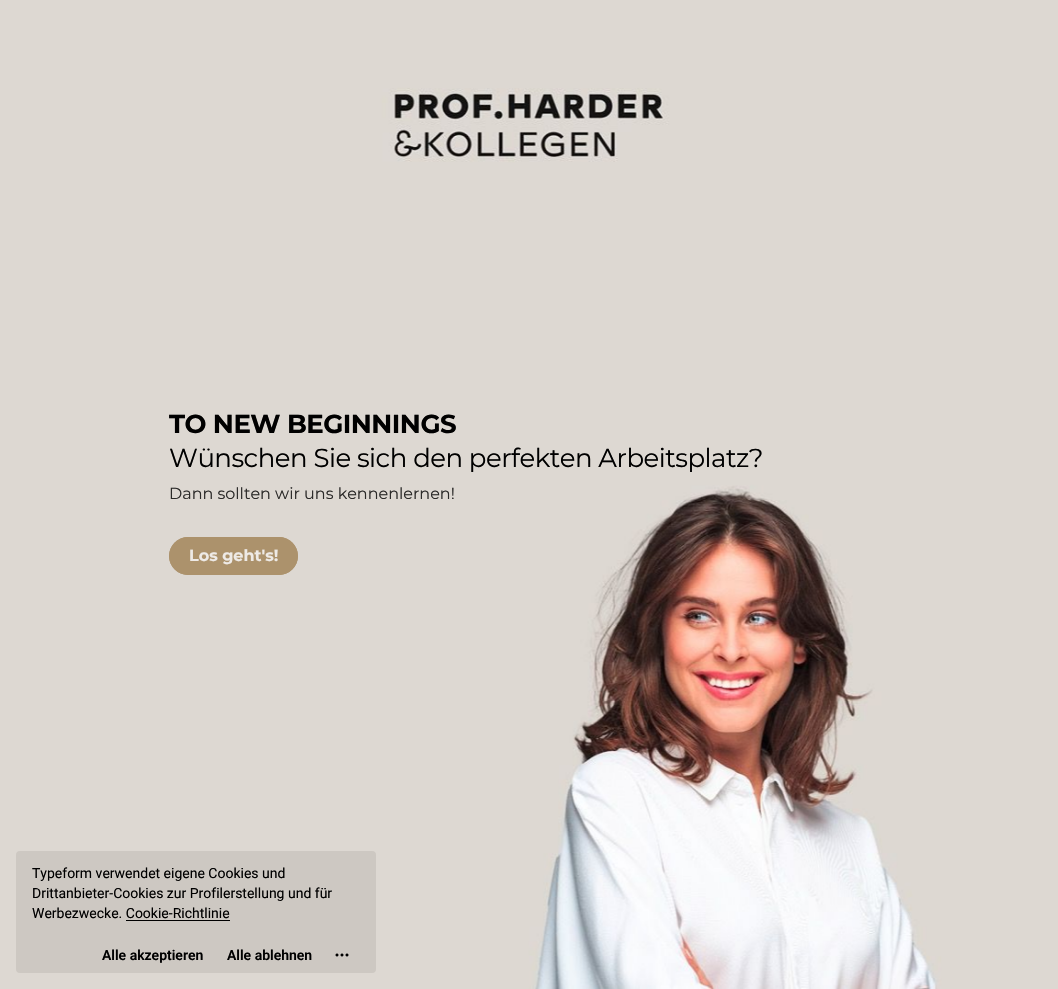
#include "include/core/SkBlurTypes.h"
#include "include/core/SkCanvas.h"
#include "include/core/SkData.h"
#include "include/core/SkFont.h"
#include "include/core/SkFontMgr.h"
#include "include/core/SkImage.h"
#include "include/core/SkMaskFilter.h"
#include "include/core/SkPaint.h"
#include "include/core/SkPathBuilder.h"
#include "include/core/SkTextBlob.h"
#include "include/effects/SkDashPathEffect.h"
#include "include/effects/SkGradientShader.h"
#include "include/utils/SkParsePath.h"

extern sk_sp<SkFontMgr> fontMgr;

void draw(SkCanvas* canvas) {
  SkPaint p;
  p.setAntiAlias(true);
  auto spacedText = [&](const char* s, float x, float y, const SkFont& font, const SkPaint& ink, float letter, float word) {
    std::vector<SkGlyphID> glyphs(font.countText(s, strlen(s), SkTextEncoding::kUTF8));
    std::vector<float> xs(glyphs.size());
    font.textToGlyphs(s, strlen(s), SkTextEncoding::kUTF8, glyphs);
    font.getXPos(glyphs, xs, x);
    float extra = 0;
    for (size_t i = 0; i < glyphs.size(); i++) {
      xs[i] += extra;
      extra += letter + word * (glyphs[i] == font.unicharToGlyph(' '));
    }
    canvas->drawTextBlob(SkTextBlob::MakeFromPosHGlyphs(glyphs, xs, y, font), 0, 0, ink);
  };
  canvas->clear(SK_ColorWHITE);
  canvas->drawImageRect(SkImages::DeferredFromEncodedData(SkData::MakeFromFileName("images/1.png")), SkRect::MakeLTRB(0, 0, 1058, 989), SkSamplingOptions());
  p.setStyle(SkPaint::kStroke_Style);
  p.setStrokeWidth(1);
  p.setColor(SkColorSetRGB(172, 146, 108));
  canvas->drawRoundRect(SkRect::MakeLTRB(169.5f, 537.5f, 297.5f, 574.5f), 18.5f, 18.5f, p);
  p.setStyle(SkPaint::kFill_Style);
  canvas->drawRoundRect(SkRect::MakeLTRB(169, 537, 298, 575), 19, 19, p);
  p.setColor(SkColorSetRGB(205, 200, 194));
  canvas->drawRoundRect(SkRect::MakeLTRB(16, 851, 376, 973), 4, 4, p);
  p.setColor(SK_ColorBLACK);
  canvas->drawRect(SkRect::MakeLTRB(126, 920, 230, 921), p);
  canvas->drawImageRect(SkImages::DeferredFromEncodedData(SkData::MakeFromFileName("images/2.png")), SkRect::MakeLTRB(335, 953, 349, 957), SkSamplingOptions());
  SkFont font1(fontMgr->matchFamilyStyle("Montserrat", SkFontStyle(100, SkFontStyle::kNormal_Width, SkFontStyle::kUpright_Slant)), 26);
  font1.setSubpixel(true);
  spacedText("TO NEW BEGINNINGS", 169, 433, font1, p, -0.5f, 0);
  SkFont font2(fontMgr->matchFamilyStyle("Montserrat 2", SkFontStyle(100, SkFontStyle::kNormal_Width, SkFontStyle::kUpright_Slant)), 26);
  font2.setSubpixel(true);
  spacedText("Wünschen Sie sich den perfekten Arbeitsplatz?", 169, 467, font2, p, -0.5f, 0);
  SkFont font3(fontMgr->matchFamilyStyle("Montserrat 2", SkFontStyle(100, SkFontStyle::kNormal_Width, SkFontStyle::kUpright_Slant)), 16);
  font3.setSubpixel(true);
  p.setColor(SkColorSetRGB(43, 42, 41));
  canvas->drawString("Dann sollten wir uns kennenlernen!", 169, 499, font3, p);
  SkFont font4(fontMgr->matchFamilyStyle("Montserrat", SkFontStyle(100, SkFontStyle::kNormal_Width, SkFontStyle::kUpright_Slant)), 16);
  font4.setSubpixel(true);
  p.setColor(SkColorSetRGB(238, 234, 230));
  canvas->drawString("Los geht's!", 189, 561, font4, p);
  SkFont font5(fontMgr->matchFamilyStyle("Roboto", SkFontStyle::Normal()), 14);
  font5.setSubpixel(true);
  p.setColor(SK_ColorBLACK);
  canvas->drawString("Typeform verwendet eigene Cookies und", 32, 878, font5, p);
  canvas->drawString("Drittanbieter-Cookies zur Profilerstellung und für", 32, 898, font5, p);
  canvas->drawString("Werbezwecke. Cookie-Richtlinie", 32, 918, font5, p);
  SkFont font6(fontMgr->matchFamilyStyle("Roboto", SkFontStyle(600, SkFontStyle::kNormal_Width, SkFontStyle::kUpright_Slant)), 14);
  font6.setSubpixel(true);
  canvas->drawString("Alle akzeptieren", 102, 960, font6, p);
  canvas->drawString("Alle ablehnen", 227, 960, font6, p);
}
